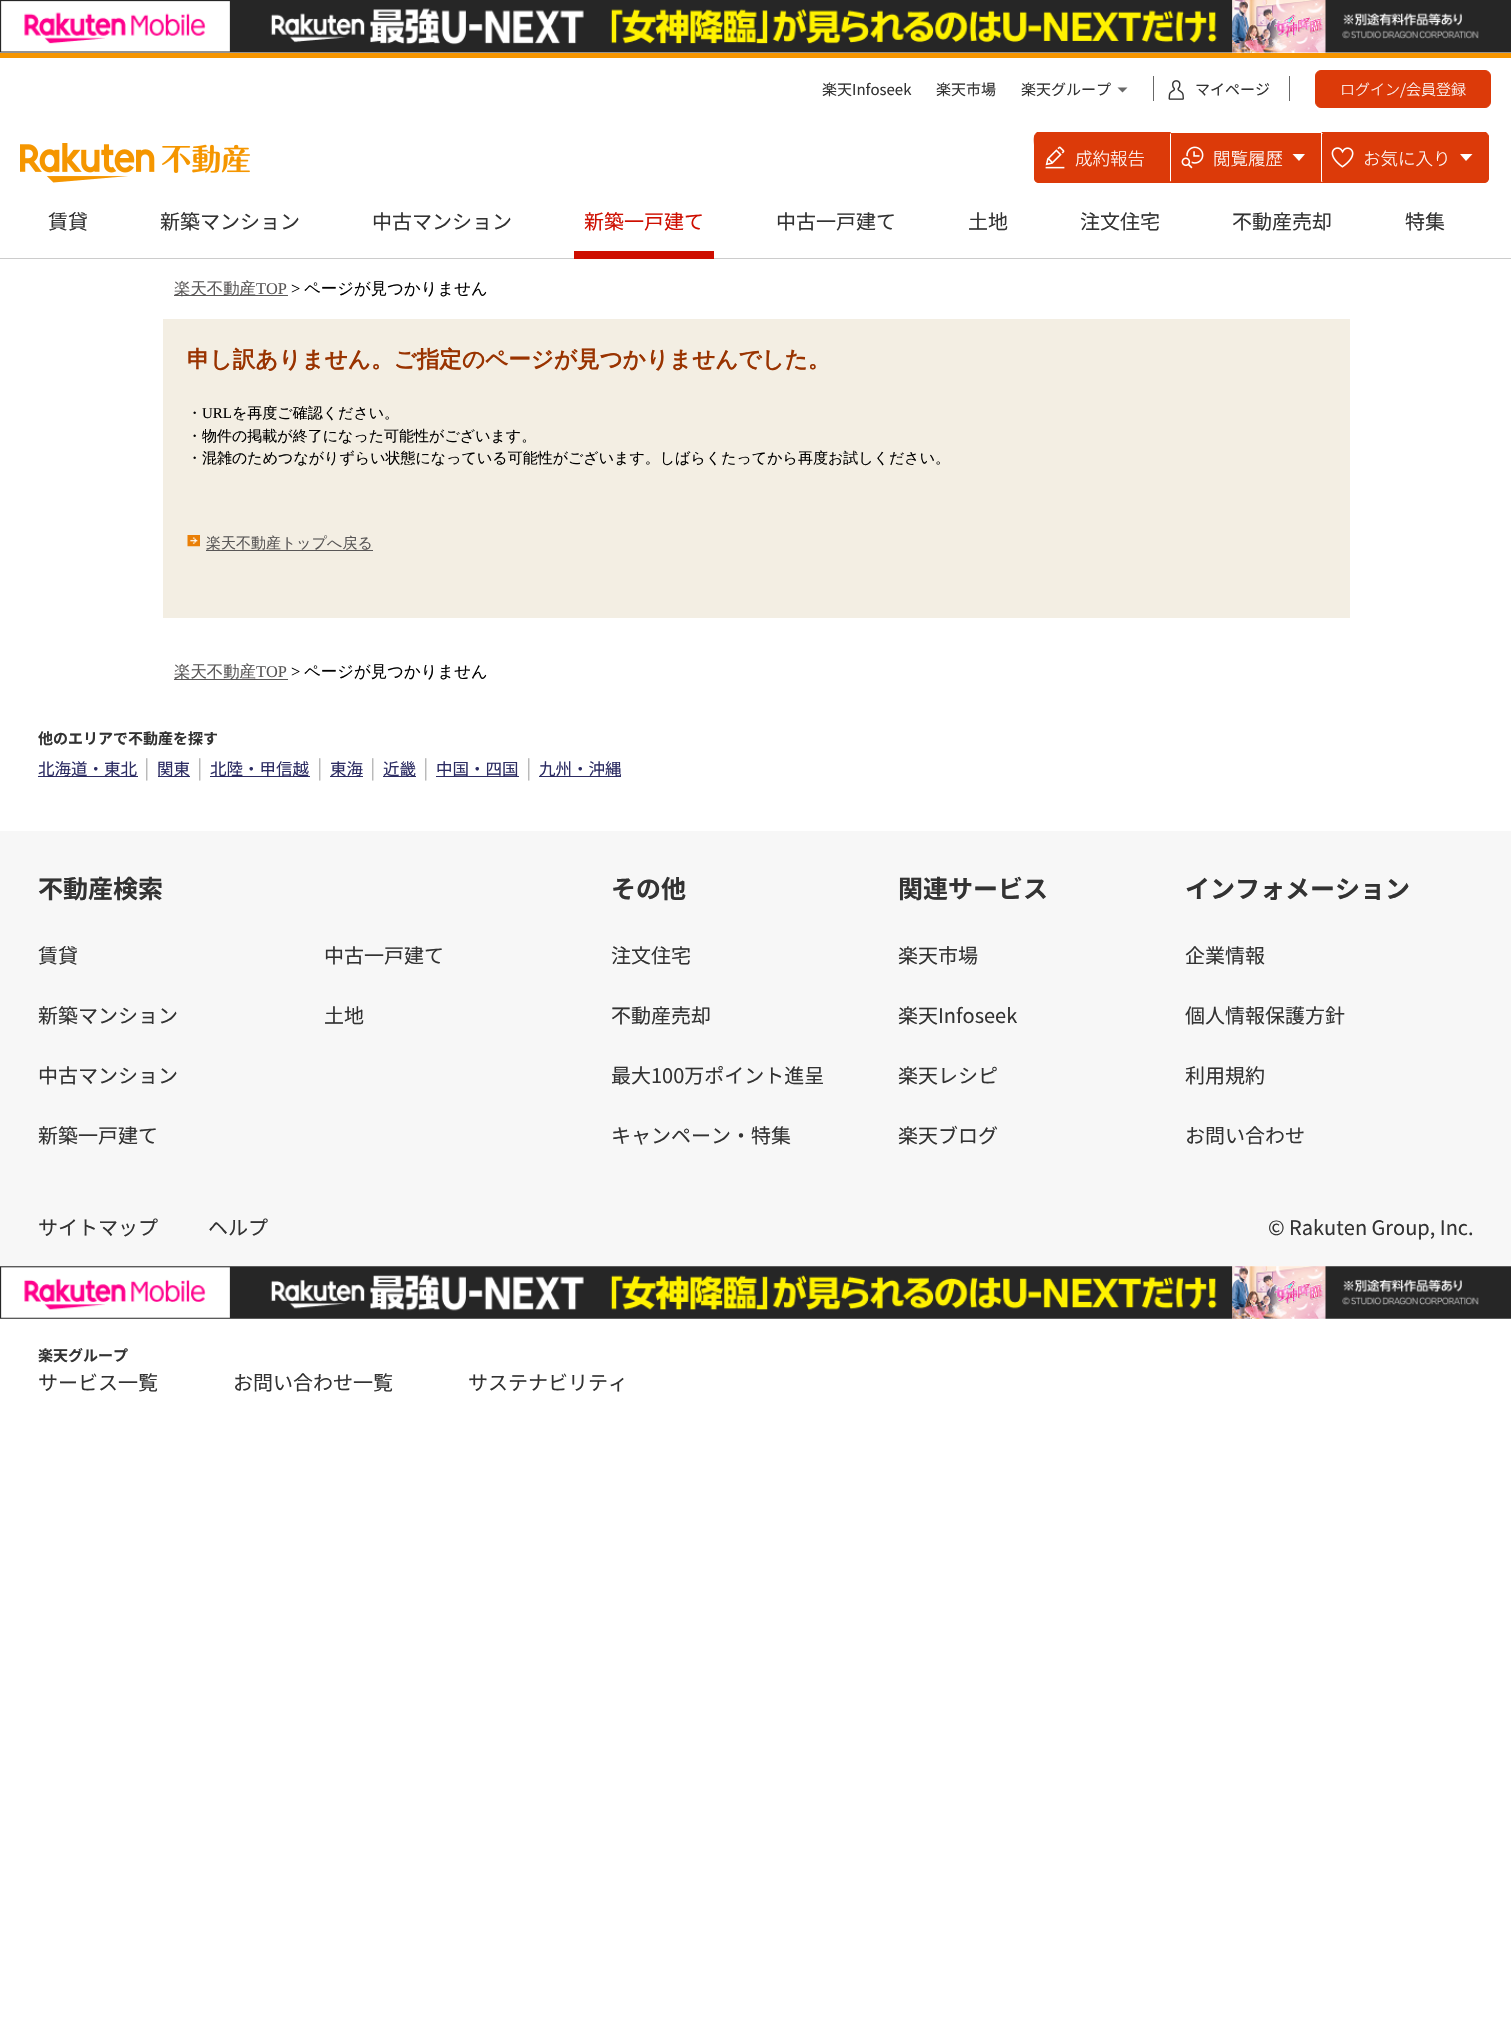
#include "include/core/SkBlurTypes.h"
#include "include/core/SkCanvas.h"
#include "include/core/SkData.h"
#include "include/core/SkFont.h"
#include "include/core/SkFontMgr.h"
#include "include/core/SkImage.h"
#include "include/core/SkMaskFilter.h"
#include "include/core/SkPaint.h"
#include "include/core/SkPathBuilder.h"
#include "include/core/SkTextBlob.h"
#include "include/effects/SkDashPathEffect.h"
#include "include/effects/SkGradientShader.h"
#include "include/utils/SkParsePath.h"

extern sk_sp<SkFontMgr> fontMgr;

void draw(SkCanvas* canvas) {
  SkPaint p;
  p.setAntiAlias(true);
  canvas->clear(SK_ColorWHITE);
  canvas->drawImageRect(SkImages::DeferredFromEncodedData(SkData::MakeFromFileName("images/1.png")), SkRect::MakeLTRB(0, 0, 1511, 53), SkSamplingOptions());
  p.setColor(SkColorSetRGB(245, 149, 0));
  canvas->drawRect(SkRect::MakeLTRB(0, 53, 1511, 58), p);
  p.setColor(SkColorSetRGB(204, 204, 204));
  canvas->drawRect(SkRect::MakeLTRB(0, 258, 1511, 259), p);
  p.setColor(SkColorSetRGB(104, 104, 104));
  canvas->drawPath(SkPathBuilder().moveTo(1117.5f, 87.5f).lineTo(1127.5f, 87.5f).lineTo(1122.5f, 92.5f).close().detach(), p);
  canvas->drawRect(SkRect::MakeLTRB(1153, 76, 1154, 101), p);
  canvas->drawImageRect(SkImages::DeferredFromEncodedData(SkData::MakeFromFileName("images/2.png")), SkRect::MakeLTRB(1168, 80, 1184, 100), SkSamplingOptions());
  canvas->drawRect(SkRect::MakeLTRB(1289, 76, 1290, 101), p);
  p.setColor(SkColorSetRGB(220, 58, 9));
  canvas->drawRoundRect(SkRect::MakeLTRB(1315.5f, 70.5f, 1490.5f, 107.5f), 5.5f, 5.5f, p);
  p.setStyle(SkPaint::kStroke_Style);
  p.setStrokeWidth(1);
  canvas->drawRoundRect(SkRect::MakeLTRB(1315.5f, 70.5f, 1490.5f, 107.5f), 5.5f, 5.5f, p);
  canvas->drawImageRect(SkImages::DeferredFromEncodedData(SkData::MakeFromFileName("images/3.png")), SkRect::MakeLTRB(20, 143, 250, 183), SkSamplingOptions());
  p.setStyle(SkPaint::kFill_Style);
  canvas->drawPath(SkPathBuilder().moveTo(1039, 133).lineTo(1171, 133).lineTo(1171, 183).lineTo(1039, 183).cubicTo(1036, 183, 1034, 181, 1034, 178).lineTo(1034, 138).cubicTo(1034, 135, 1036, 133, 1039, 133).close().detach(), p);
  canvas->drawPath(SkPathBuilder().moveTo(1039, 134).lineTo(1036, 135).lineTo(1035, 134).lineTo(1037, 132).lineTo(1171, 132).lineTo(1170, 134).close().detach(), p);
  p.setColor(SK_ColorWHITE);
  canvas->drawPath(SkPathBuilder().moveTo(1171, 133).lineTo(1171, 182).lineTo(1170, 181).lineTo(1170, 134).close().detach(), p);
  p.setColor(SkColorSetRGB(220, 58, 9));
  canvas->drawPath(SkPathBuilder().moveTo(1171, 182).lineTo(1038, 182).lineTo(1035, 181).lineTo(1036, 180).lineTo(1039, 181).lineTo(1170, 181).close().detach(), p);
  canvas->drawPath(SkPathBuilder().moveTo(1035, 181).lineTo(1034, 178).lineTo(1034, 145).cubicTo(1034, 142, 1033, 137, 1035, 134).lineTo(1036, 135).cubicTo(1034, 137, 1035, 143, 1035, 145).lineTo(1035, 178).lineTo(1036, 180).close().detach(), p);
  canvas->drawImageRect(SkImages::DeferredFromEncodedData(SkData::MakeFromFileName("images/4.png")), SkRect::MakeLTRB(1045, 146, 1065, 169), SkSamplingOptions());
  canvas->drawRect(SkRect::MakeLTRB(1171, 133, 1321, 183), p);
  canvas->drawImageRect(SkImages::DeferredFromEncodedData(SkData::MakeFromFileName("images/5.png")), SkRect::MakeLTRB(1181, 146, 1204, 169), SkSamplingOptions());
  p.setColor(SK_ColorWHITE);
  canvas->drawPath(SkPathBuilder().moveTo(1292.5f, 154).lineTo(1305, 154).lineTo(1299, 161).close().detach(), p);
  p.setColor(SkColorSetRGB(220, 58, 9));
  canvas->drawPath(SkPathBuilder().moveTo(1321, 133).lineTo(1484, 133).cubicTo(1487, 133, 1489, 135, 1489, 138).lineTo(1489, 178).cubicTo(1489, 181, 1487, 183, 1484, 183).lineTo(1321, 183).close().detach(), p);
  canvas->drawPath(SkPathBuilder().moveTo(1321, 132).lineTo(1486, 132).lineTo(1488, 134).lineTo(1487, 135).lineTo(1484, 134).lineTo(1323, 134).close().detach(), p);
  canvas->drawPath(SkPathBuilder().moveTo(1489, 179).lineTo(1487, 181).lineTo(1487, 180).lineTo(1488, 178).lineTo(1488, 145).cubicTo(1488, 143, 1489, 137, 1487, 135).lineTo(1488, 134).lineTo(1489, 136).close().detach(), p);
  p.setColor(SK_ColorWHITE);
  canvas->drawPath(SkPathBuilder().moveTo(1322, 134).lineTo(1322, 181).lineTo(1323, 181).lineTo(1321, 182).lineTo(1321, 132).lineTo(1323, 134).close().detach(), p);
  canvas->drawImageRect(SkImages::DeferredFromEncodedData(SkData::MakeFromFileName("images/6.png")), SkRect::MakeLTRB(1331, 147, 1354, 168), SkSamplingOptions());
  canvas->drawPath(SkPathBuilder().moveTo(1460, 154).lineTo(1472.5f, 154).lineTo(1466, 161).close().detach(), p);
  p.setColor(SkColorSetRGB(206, 14, 0));
  canvas->drawRect(SkRect::MakeLTRB(574, 251, 714, 259), p);
  p.setColor(SkColorSetRGB(89, 87, 87));
  canvas->drawRect(SkRect::MakeLTRB(174, 295, 288, 296), p);
  p.setColor(SkColorSetRGB(243, 238, 227));
  canvas->drawRect(SkRect::MakeLTRB(163, 319, 1350, 618), p);
  canvas->drawImageRect(SkImages::DeferredFromEncodedData(SkData::MakeFromFileName("images/7.png")), SkRect::MakeLTRB(187, 535, 200, 547), SkSamplingOptions());
  p.setColor(SkColorSetRGB(89, 87, 87));
  canvas->drawRect(SkRect::MakeLTRB(206, 550, 373, 551), p);
  canvas->drawRect(SkRect::MakeLTRB(174, 679, 288, 680), p);
  p.setColor(SkColorSetRGB(43, 43, 98));
  canvas->drawRect(SkRect::MakeLTRB(38, 776, 138, 777), p);
  canvas->drawRect(SkRect::MakeLTRB(158, 776, 190, 777), p);
  canvas->drawRect(SkRect::MakeLTRB(210, 776, 310, 777), p);
  canvas->drawRect(SkRect::MakeLTRB(330, 776, 363, 777), p);
  canvas->drawRect(SkRect::MakeLTRB(383, 776, 416, 777), p);
  canvas->drawRect(SkRect::MakeLTRB(436, 776, 519, 777), p);
  canvas->drawRect(SkRect::MakeLTRB(539, 776, 621, 777), p);
  p.setColor(SkColorSetRGB(247, 247, 247));
  canvas->drawRect(SkRect::MakeLTRB(0, 831, 1511, 1266), p);
  canvas->drawImageRect(SkImages::DeferredFromEncodedData(SkData::MakeFromFileName("images/8.png")), SkRect::MakeLTRB(0, 1266, 1511, 1319), SkSamplingOptions());
  SkFont font1(fontMgr->matchFamilyStyle("Noto Sans JP", SkFontStyle::Normal()), 15);
  font1.setSubpixel(true);
  p.setColor(SkColorSetRGB(51, 51, 51));
  canvas->drawString("楽天Infoseek", 822, 95, font1, p);
  canvas->drawString("楽天市場", 936, 95, font1, p);
  canvas->drawString("楽天グループ", 1021, 95, font1, p);
  canvas->drawString("マイページ", 1195, 95, font1, p);
  SkFont font2(fontMgr->matchFamilyStyle("Noto Sans JP", SkFontStyle(300, SkFontStyle::kNormal_Width, SkFontStyle::kUpright_Slant)), 15);
  font2.setSubpixel(true);
  p.setColor(SK_ColorWHITE);
  canvas->drawString("ログイン/会員登録", 1340, 95, font2, p);
  SkFont font3(fontMgr->matchFamilyStyle("Noto Sans JP", SkFontStyle(300, SkFontStyle::kNormal_Width, SkFontStyle::kUpright_Slant)), 17.5f);
  font3.setSubpixel(true);
  canvas->drawString("成約報告", 1075, 165, font3, p);
  canvas->drawString("閲覧履歴", 1213, 165, font3, p);
  canvas->drawString("お気に入り", 1363, 165, font3, p);
  SkFont font4(fontMgr->matchFamilyStyle("Noto Sans JP", SkFontStyle::Normal()), 20);
  font4.setSubpixel(true);
  p.setColor(SkColorSetRGB(51, 51, 51));
  canvas->drawString("賃貸", 48, 229, font4, p);
  canvas->drawString("新築マンション", 160, 229, font4, p);
  canvas->drawString("中古マンション", 372, 229, font4, p);
  p.setColor(SkColorSetRGB(206, 14, 0));
  canvas->drawString("新築一戸建て", 584, 229, font4, p);
  p.setColor(SkColorSetRGB(51, 51, 51));
  canvas->drawString("中古一戸建て", 776, 229, font4, p);
  canvas->drawString("土地", 968, 229, font4, p);
  canvas->drawString("注文住宅", 1080, 229, font4, p);
  canvas->drawString("不動産売却", 1232, 229, font4, p);
  canvas->drawString("特集", 1405, 229, font4, p);
  SkFont font5(fontMgr->matchFamilyStyle("WenQuanYi Zen Hei", SkFontStyle(500, SkFontStyle::kNormal_Width, SkFontStyle::kUpright_Slant)), 16.4f);
  font5.setSubpixel(true);
  p.setColor(SkColorSetRGB(89, 87, 87));
  canvas->drawString("楽天不動産", 174, 294, font5, p);
  SkFont font6(fontMgr->matchFamilyStyle("Liberation Serif", SkFontStyle::Normal()), 16.4f);
  font6.setSubpixel(true);
  canvas->drawString("TOP", 256, 294, font6, p);
  p.setColor(SK_ColorBLACK);
  canvas->drawString(">", 291, 294, font6, p);
  canvas->drawString("ページが見つかりません", 304, 294, font5, p);
  SkFont font7(fontMgr->matchFamilyStyle("WenQuanYi Zen Hei", SkFontStyle::Bold()), 22.6f);
  font7.setSubpixel(true);
  p.setColor(SkColorSetRGB(153, 51, 0));
  canvas->drawString("申し訳ありません。ご指定のページが見つかりませんでした。", 187, 367, font7, p);
  SkFont font8(fontMgr->matchFamilyStyle("WenQuanYi Zen Hei", SkFontStyle(500, SkFontStyle::kNormal_Width, SkFontStyle::kUpright_Slant)), 15);
  font8.setSubpixel(true);
  p.setColor(SK_ColorBLACK);
  canvas->drawString("・", 187, 418, font8, p);
  SkFont font9(fontMgr->matchFamilyStyle("Liberation Serif", SkFontStyle::Normal()), 15);
  font9.setSubpixel(true);
  canvas->drawString("URL", 202, 418, font9, p);
  canvas->drawString("を再度ご確認ください。", 232, 418, font8, p);
  canvas->drawString("・物件の掲載が終了になった可能性がございます。", 187, 441, font8, p);
  canvas->drawString("・混雑のためつながりずらい状態になっている可能性がございます。しばらくたってから再度お試しください。", 187, 463, font8, p);
  p.setColor(SkColorSetRGB(89, 87, 87));
  canvas->drawString("楽天不動産トップへ戻る", 206, 548, font8, p);
  canvas->drawString("楽天不動産", 174, 677, font5, p);
  canvas->drawString("TOP", 256, 677, font6, p);
  p.setColor(SK_ColorBLACK);
  canvas->drawString(">", 291, 677, font6, p);
  canvas->drawString("ページが見つかりません", 304, 677, font5, p);
  SkFont font10(fontMgr->matchFamilyStyle("Noto Sans JP", SkFontStyle::Bold()), 15);
  font10.setSubpixel(true);
  p.setColor(SkColorSetRGB(51, 51, 51));
  canvas->drawString("他のエリアで不動産を探す", 38, 744, font10, p);
  SkFont font11(fontMgr->matchFamilyStyle("Noto Sans JP", SkFontStyle::Normal()), 16.5f);
  font11.setSubpixel(true);
  p.setColor(SkColorSetRGB(43, 43, 98));
  canvas->drawString("北海道・東北", 38, 775, font11, p);
  p.setColor(SkColorSetRGB(183, 183, 183));
  canvas->drawString("|", 144, 775, font4, p);
  p.setColor(SkColorSetRGB(43, 43, 98));
  canvas->drawString("関東", 157, 775, font11, p);
  p.setColor(SkColorSetRGB(183, 183, 183));
  canvas->drawString("|", 197, 775, font4, p);
  p.setColor(SkColorSetRGB(43, 43, 98));
  canvas->drawString("北陸・甲信越", 210, 775, font11, p);
  p.setColor(SkColorSetRGB(183, 183, 183));
  canvas->drawString("|", 317, 775, font4, p);
  p.setColor(SkColorSetRGB(43, 43, 98));
  canvas->drawString("東海", 330, 775, font11, p);
  p.setColor(SkColorSetRGB(183, 183, 183));
  canvas->drawString("|", 370, 775, font4, p);
  p.setColor(SkColorSetRGB(43, 43, 98));
  canvas->drawString("近畿", 383, 775, font11, p);
  p.setColor(SkColorSetRGB(183, 183, 183));
  canvas->drawString("|", 423, 775, font4, p);
  p.setColor(SkColorSetRGB(43, 43, 98));
  canvas->drawString("中国・四国", 436, 775, font11, p);
  p.setColor(SkColorSetRGB(183, 183, 183));
  canvas->drawString("|", 526, 775, font4, p);
  p.setColor(SkColorSetRGB(43, 43, 98));
  canvas->drawString("九州・沖縄", 539, 775, font11, p);
  SkFont font12(fontMgr->matchFamilyStyle("Noto Sans JP", SkFontStyle::Bold()), 25);
  font12.setSubpixel(true);
  p.setColor(SkColorSetRGB(51, 51, 51));
  canvas->drawString("不動産検索", 38, 898, font12, p);
  canvas->drawString("賃貸", 38, 963, font4, p);
  canvas->drawString("新築マンション", 38, 1023, font4, p);
  canvas->drawString("中古マンション", 38, 1083, font4, p);
  canvas->drawString("新築一戸建て", 38, 1143, font4, p);
  canvas->drawString("中古一戸建て", 324, 963, font4, p);
  canvas->drawString("土地", 324, 1023, font4, p);
  canvas->drawString("その他", 611, 898, font12, p);
  canvas->drawString("注文住宅", 611, 963, font4, p);
  canvas->drawString("不動産売却", 611, 1023, font4, p);
  canvas->drawString("最大100万ポイント進呈", 611, 1083, font4, p);
  canvas->drawString("キャンペーン・特集", 611, 1143, font4, p);
  canvas->drawString("関連サービス", 898, 898, font12, p);
  canvas->drawString("楽天市場", 898, 963, font4, p);
  canvas->drawString("楽天Infoseek", 898, 1023, font4, p);
  canvas->drawString("楽天レシピ", 898, 1083, font4, p);
  canvas->drawString("楽天ブログ", 898, 1143, font4, p);
  canvas->drawString("インフォメーション", 1185, 898, font12, p);
  canvas->drawString("企業情報", 1185, 963, font4, p);
  canvas->drawString("個人情報保護方針", 1185, 1023, font4, p);
  canvas->drawString("利用規約", 1185, 1083, font4, p);
  canvas->drawString("お問い合わせ", 1185, 1143, font4, p);
  canvas->drawString("サイトマップ", 38, 1235, font4, p);
  canvas->drawString("ヘルプ", 208, 1235, font4, p);
  canvas->drawString("© Rakuten Group, Inc.", 1268, 1235, font4, p);
  canvas->drawString("楽天グループ", 38, 1361, font10, p);
  canvas->drawString("サービス一覧", 38, 1390, font4, p);
  canvas->drawString("お問い合わせ一覧", 233, 1390, font4, p);
  canvas->drawString("サステナビリティ", 468, 1390, font4, p);
}
